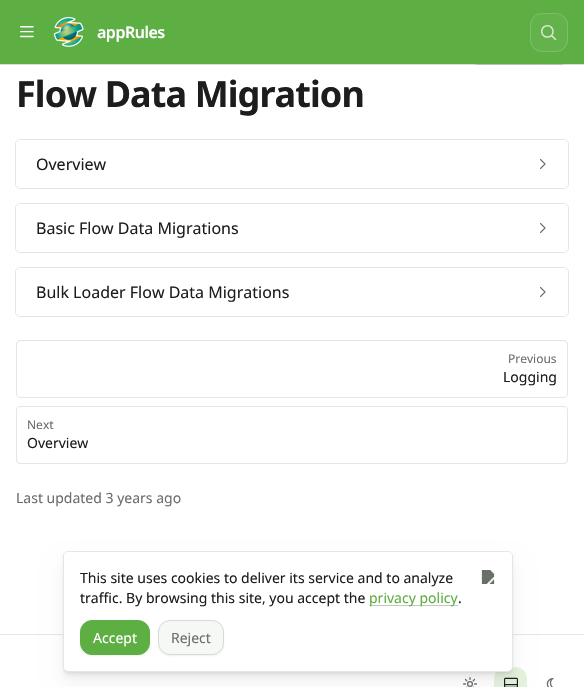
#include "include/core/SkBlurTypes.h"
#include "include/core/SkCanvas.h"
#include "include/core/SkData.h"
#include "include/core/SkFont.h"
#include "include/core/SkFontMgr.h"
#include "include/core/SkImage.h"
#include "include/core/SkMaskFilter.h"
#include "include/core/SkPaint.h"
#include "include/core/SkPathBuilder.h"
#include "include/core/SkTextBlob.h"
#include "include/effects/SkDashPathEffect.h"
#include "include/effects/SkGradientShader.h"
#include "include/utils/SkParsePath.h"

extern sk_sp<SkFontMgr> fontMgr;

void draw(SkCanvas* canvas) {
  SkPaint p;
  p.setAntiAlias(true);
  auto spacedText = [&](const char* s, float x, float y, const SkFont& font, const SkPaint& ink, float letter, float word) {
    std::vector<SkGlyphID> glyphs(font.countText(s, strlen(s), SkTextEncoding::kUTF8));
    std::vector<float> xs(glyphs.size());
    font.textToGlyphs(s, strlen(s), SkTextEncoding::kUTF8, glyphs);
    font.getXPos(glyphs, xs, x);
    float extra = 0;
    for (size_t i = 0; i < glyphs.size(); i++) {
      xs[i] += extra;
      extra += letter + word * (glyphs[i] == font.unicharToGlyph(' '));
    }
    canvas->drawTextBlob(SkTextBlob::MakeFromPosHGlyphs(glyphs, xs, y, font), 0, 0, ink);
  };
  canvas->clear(SK_ColorWHITE);
  p.setStyle(SkPaint::kStroke_Style);
  p.setStrokeWidth(1);
  p.setColor(SkColorSetRGB(214, 219, 212));
  canvas->drawPath(SkPathBuilder().moveTo(478, 37.5f).lineTo(542.5f, 37.5f).lineTo(542.5f, 64.5f).lineTo(478, 64.5f).cubicTo(474, 64.5f, 470.5f, 61, 470.5f, 57).lineTo(470.5f, 45).cubicTo(470.5f, 41, 474, 37.5f, 478, 37.5f).close().detach(), p);
  p.setStyle(SkPaint::kFill_Style);
  canvas->drawPath(SkPathBuilder(SkPathFillType::kEvenOdd).moveTo(543, 37).lineTo(560, 37).cubicTo(564.5f, 37, 568, 40.5f, 568, 45).lineTo(568, 57).cubicTo(568, 61.5f, 564.5f, 65, 560, 65).lineTo(543, 65).close().moveTo(543, 38).lineTo(560, 38).cubicTo(564, 38, 567, 41, 567, 45).lineTo(567, 57).cubicTo(567, 61, 564, 64, 560, 64).lineTo(543, 64).close().detach(), p);
  p.setColor(SkColorSetARGB(20, 28, 29, 28));
  canvas->drawRect(SkRect::MakeLTRB(0, 64, 584, 65), p);
  canvas->drawRect(SkRect::MakeLTRB(0, 64, 584, 65), p);
  p.setColor(SkColorSetRGB(94, 175, 67));
  canvas->drawRect(SkRect::MakeLTRB(0, 0, 584, 64), p);
  canvas->drawImageRect(SkImages::DeferredFromEncodedData(SkData::MakeFromFileName("images/1.png")), SkRect::MakeLTRB(20, 26, 34, 38), SkSamplingOptions());
  canvas->drawImageRect(SkImages::DeferredFromEncodedData(SkData::MakeFromFileName("images/2.png")), SkRect::MakeLTRB(53, 16, 84, 47), SkSamplingOptions());
  p.setColor(SkColorSetRGB(100, 178, 75));
  canvas->drawRoundRect(SkRect::MakeLTRB(530, 13, 568, 52), 12, 12, p);
  p.setStyle(SkPaint::kStroke_Style);
  p.setColor(SkColorSetARGB(41, 255, 255, 255));
  canvas->drawRoundRect(SkRect::MakeLTRB(530.5f, 13.5f, 567.5f, 51.5f), 11.5f, 11.5f, p);
  canvas->drawImageRect(SkImages::DeferredFromEncodedData(SkData::MakeFromFileName("images/3.png")), SkRect::MakeLTRB(541, 25, 557, 40), SkSamplingOptions());
  p.setColor(SkColorSetRGB(227, 231, 226));
  canvas->drawRoundRect(SkRect::MakeLTRB(15.5f, 139.5f, 568.5f, 188.5f), 4.5f, 4.5f, p);
  canvas->drawImageRect(SkImages::DeferredFromEncodedData(SkData::MakeFromFileName("images/4.png")), SkRect::MakeLTRB(540, 159, 546, 169), SkSamplingOptions());
  canvas->drawRoundRect(SkRect::MakeLTRB(15.5f, 203.5f, 568.5f, 252.5f), 4.5f, 4.5f, p);
  canvas->drawImageRect(SkImages::DeferredFromEncodedData(SkData::MakeFromFileName("images/4.png")), SkRect::MakeLTRB(540, 223, 546, 233), SkSamplingOptions());
  canvas->drawRoundRect(SkRect::MakeLTRB(15.5f, 267.5f, 568.5f, 316.5f), 4.5f, 4.5f, p);
  canvas->drawImageRect(SkImages::DeferredFromEncodedData(SkData::MakeFromFileName("images/4.png")), SkRect::MakeLTRB(540, 287, 546, 297), SkSamplingOptions());
  canvas->drawRoundRect(SkRect::MakeLTRB(16.5f, 340.5f, 567.5f, 397.5f), 3.5f, 3.5f, p);
  canvas->drawRoundRect(SkRect::MakeLTRB(16.5f, 406.5f, 567.5f, 463.5f), 3.5f, 3.5f, p);
  p.setStyle(SkPaint::kFill_Style);
  canvas->drawRect(SkRect::MakeLTRB(0, 634, 584, 635), p);
  canvas->drawImageRect(SkImages::DeferredFromEncodedData(SkData::MakeFromFileName("images/6.png")), SkRect::MakeLTRB(463, 677, 477, 687), SkSamplingOptions());
  p.setColor(SkColorSetRGB(227, 243, 222));
  canvas->drawRoundRect(SkRect::MakeLTRB(494, 667, 527, 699), 12, 12, p);
  canvas->drawImageRect(SkImages::DeferredFromEncodedData(SkData::MakeFromFileName("images/7.png")), SkRect::MakeLTRB(504, 677, 518, 687), SkSamplingOptions());
  p.setColor(SkColorSetARGB(10, 0, 0, 0));
  p.setMaskFilter(SkMaskFilter::MakeBlur(kNormal_SkBlurStyle, 11));
  canvas->drawRoundRect(SkRect::MakeLTRB(64, 566, 512, 685), 4, 4, p);
  p.setMaskFilter(nullptr);
  p.setColor(SkColorSetARGB(13, 0, 0, 0));
  p.setMaskFilter(SkMaskFilter::MakeBlur(kNormal_SkBlurStyle, 3.5f));
  canvas->drawRoundRect(SkRect::MakeLTRB(64, 558, 512, 677), 4, 4, p);
  p.setMaskFilter(nullptr);
  p.setMaskFilter(SkMaskFilter::MakeBlur(kNormal_SkBlurStyle, 1.5f));
  canvas->drawRoundRect(SkRect::MakeLTRB(64, 555, 512, 674), 4, 4, p);
  p.setMaskFilter(nullptr);
  p.setColor(SkColorSetARGB(23, 0, 0, 0));
  p.setMaskFilter(SkMaskFilter::MakeBlur(kNormal_SkBlurStyle, 0.5f));
  canvas->drawRoundRect(SkRect::MakeLTRB(64, 553, 512, 672), 4, 4, p);
  p.setMaskFilter(nullptr);
  p.setStyle(SkPaint::kStroke_Style);
  p.setColor(SkColorSetRGB(227, 231, 226));
  canvas->drawRoundRect(SkRect::MakeLTRB(63.5f, 551.5f, 512.5f, 671.5f), 4.5f, 4.5f, p);
  p.setStyle(SkPaint::kFill_Style);
  p.setColor(SK_ColorWHITE);
  canvas->drawRoundRect(SkRect::MakeLTRB(64, 552, 512, 671), 4, 4, p);
  p.setColor(SkColorSetRGB(189, 201, 186));
  canvas->drawRect(SkRect::MakeLTRB(369, 605, 458, 606), p);
  canvas->drawImageRect(SkImages::DeferredFromEncodedData(SkData::MakeFromFileName("images/5.png")), SkRect::MakeLTRB(481, 570, 495, 584), SkSamplingOptions());
  p.setColor(SkColorSetARGB(102, 214, 219, 212));
  p.setMaskFilter(SkMaskFilter::MakeBlur(kNormal_SkBlurStyle, 1));
  canvas->drawRoundRect(SkRect::MakeLTRB(80, 621, 150, 656), 12, 12, p);
  p.setMaskFilter(nullptr);
  p.setColor(SkColorSetRGB(94, 175, 67));
  canvas->drawRoundRect(SkRect::MakeLTRB(80.5f, 620.5f, 149.5f, 654.5f), 11.5f, 11.5f, p);
  p.setStyle(SkPaint::kStroke_Style);
  canvas->drawRoundRect(SkRect::MakeLTRB(80.5f, 620.5f, 149.5f, 654.5f), 11.5f, 11.5f, p);
  p.setStyle(SkPaint::kFill_Style);
  p.setColor(SkColorSetARGB(102, 214, 219, 212));
  p.setMaskFilter(SkMaskFilter::MakeBlur(kNormal_SkBlurStyle, 1));
  canvas->drawRoundRect(SkRect::MakeLTRB(158, 621, 224, 656), 12, 12, p);
  p.setMaskFilter(nullptr);
  p.setColor(SkColorSetRGB(246, 248, 246));
  canvas->drawRoundRect(SkRect::MakeLTRB(158.5f, 620.5f, 223.5f, 654.5f), 11.5f, 11.5f, p);
  p.setStyle(SkPaint::kStroke_Style);
  p.setColor(SkColorSetRGB(214, 219, 212));
  canvas->drawRoundRect(SkRect::MakeLTRB(158.5f, 620.5f, 223.5f, 654.5f), 11.5f, 11.5f, p);
  canvas->drawImageRect(SkImages::DeferredFromEncodedData(SkData::MakeFromFileName("images/8.png")), SkRect::MakeLTRB(546, 678, 554, 687), SkSamplingOptions());
  SkFont font1(fontMgr->matchFamilyStyle("Noto Sans", SkFontStyle(600, SkFontStyle::kNormal_Width, SkFontStyle::kUpright_Slant)), 16);
  font1.setSubpixel(true);
  p.setStyle(SkPaint::kFill_Style);
  p.setColor(SK_ColorWHITE);
  spacedText("appRules", 97, 38, font1, p, -0.5f, 0);
  SkFont font2(fontMgr->matchFamilyStyle("Noto Sans", SkFontStyle::Bold()), 36);
  font2.setSubpixel(true);
  p.setColor(SkColorSetRGB(28, 29, 28));
  spacedText("Flow Data Migration", 16, 107, font2, p, -0.9f, 0);
  SkFont font3(fontMgr->matchFamilyStyle("Noto Sans", SkFontStyle::Normal()), 16);
  font3.setSubpixel(true);
  canvas->drawString("Overview", 36, 170, font3, p);
  canvas->drawString("Basic Flow Data Migrations", 36, 234, font3, p);
  canvas->drawString("Bulk Loader Flow Data Migrations", 36, 298, font3, p);
  SkFont font4(fontMgr->matchFamilyStyle("Noto Sans", SkFontStyle::Normal()), 12);
  font4.setSubpixel(true);
  p.setColor(SkColorSetRGB(106, 112, 105));
  canvas->drawString("Previous", 508, 363, font4, p);
  SkFont font5(fontMgr->matchFamilyStyle("Noto Sans", SkFontStyle::Normal()), 14);
  font5.setSubpixel(true);
  p.setColor(SkColorSetRGB(28, 29, 28));
  canvas->drawString("Logging", 503, 382, font5, p);
  p.setColor(SkColorSetRGB(106, 112, 105));
  canvas->drawString("Next", 27, 429, font4, p);
  p.setColor(SkColorSetRGB(28, 29, 28));
  canvas->drawString("Overview", 27, 448, font5, p);
  p.setColor(SkColorSetRGB(106, 112, 105));
  canvas->drawString("Last updated 3 years ago", 16, 503, font5, p);
  p.setColor(SkColorSetRGB(28, 29, 28));
  canvas->drawString("This site uses cookies to deliver its service and to analyze", 80, 583, font5, p);
  canvas->drawString("traffic. By browsing this site, you accept the", 80, 603, font5, p);
  p.setColor(SkColorSetRGB(94, 175, 67));
  canvas->drawString("privacy policy", 369, 603, font5, p);
  p.setColor(SkColorSetRGB(28, 29, 28));
  canvas->drawString(".", 458, 603, font5, p);
  p.setColor(SK_ColorWHITE);
  canvas->drawString("Accept", 93, 643, font5, p);
  p.setColor(SkColorSetRGB(106, 112, 105));
  canvas->drawString("Reject", 171, 643, font5, p);
}
